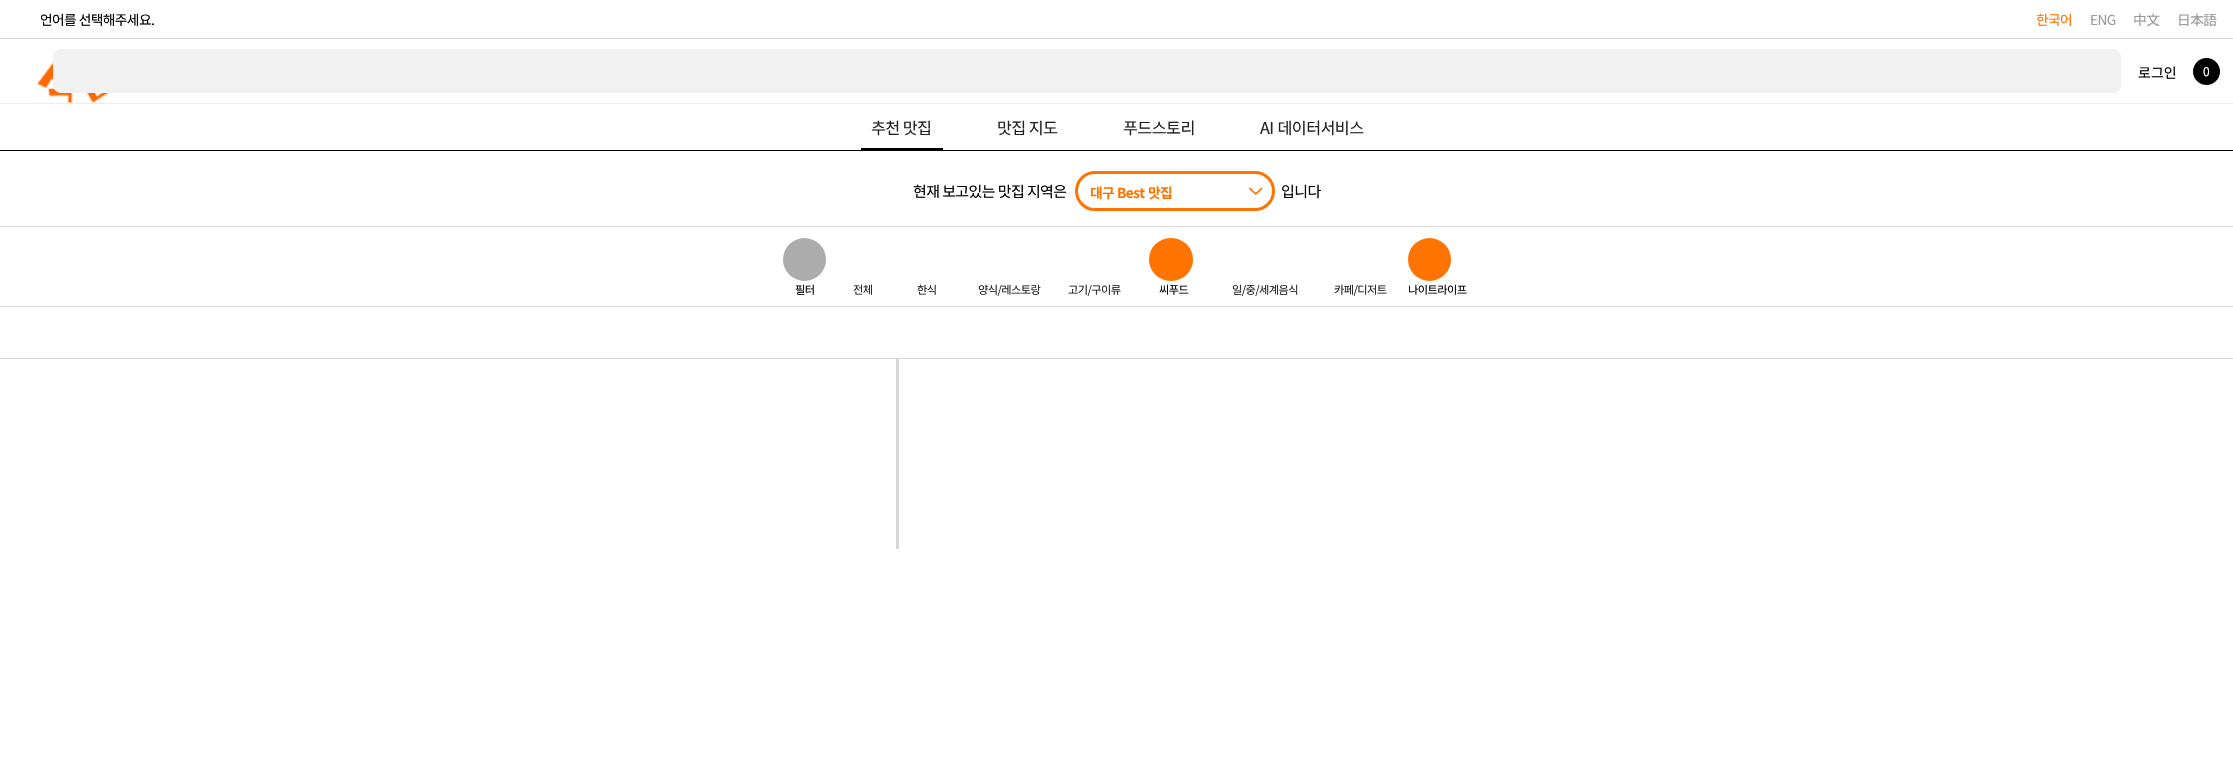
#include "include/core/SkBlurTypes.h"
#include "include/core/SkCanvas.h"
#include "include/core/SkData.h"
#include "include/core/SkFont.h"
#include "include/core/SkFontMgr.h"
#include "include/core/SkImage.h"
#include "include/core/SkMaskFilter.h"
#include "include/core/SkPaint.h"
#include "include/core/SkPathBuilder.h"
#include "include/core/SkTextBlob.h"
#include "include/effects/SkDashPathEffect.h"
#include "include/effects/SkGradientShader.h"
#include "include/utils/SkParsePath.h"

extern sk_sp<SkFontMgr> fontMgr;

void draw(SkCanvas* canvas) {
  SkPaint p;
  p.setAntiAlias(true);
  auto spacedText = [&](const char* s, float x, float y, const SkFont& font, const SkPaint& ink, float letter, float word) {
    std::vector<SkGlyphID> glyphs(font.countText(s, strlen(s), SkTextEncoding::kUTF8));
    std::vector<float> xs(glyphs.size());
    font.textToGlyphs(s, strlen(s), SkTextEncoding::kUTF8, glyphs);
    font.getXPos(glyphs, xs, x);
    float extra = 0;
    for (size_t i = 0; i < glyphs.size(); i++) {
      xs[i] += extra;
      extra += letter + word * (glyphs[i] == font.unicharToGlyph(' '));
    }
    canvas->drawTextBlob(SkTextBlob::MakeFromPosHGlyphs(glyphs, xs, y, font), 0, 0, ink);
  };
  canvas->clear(SK_ColorWHITE);
  p.setColor(SK_ColorBLACK);
  canvas->drawRect(SkRect::MakeLTRB(0, 150, 2233, 151), p);
  p.setColor(SkColorSetRGB(215, 215, 215));
  canvas->drawRect(SkRect::MakeLTRB(0, 38, 2233, 39), p);
  p.setColor(SkColorSetRGB(237, 237, 237));
  canvas->drawRect(SkRect::MakeLTRB(0, 103, 2233, 104), p);
  canvas->drawImageRect(SkImages::DeferredFromEncodedData(SkData::MakeFromFileName("images/1.png")), SkRect::MakeLTRB(37, 62, 280, 103), SkSamplingOptions());
  p.setColor(SkColorSetRGB(241, 241, 241));
  canvas->drawRoundRect(SkRect::MakeLTRB(53, 49, 2121, 93), 8, 8, p);
  p.setColor(SK_ColorBLACK);
  canvas->drawCircle(2206.5f, 71.5f, 13.5f, p);
  canvas->drawRect(SkRect::MakeLTRB(861, 148, 943, 150), p);
  canvas->drawImageRect(SkImages::DeferredFromEncodedData(SkData::MakeFromFileName("images/2.png")), SkRect::MakeLTRB(1248, 187, 1263, 195), SkSamplingOptions());
  p.setStyle(SkPaint::kStroke_Style);
  p.setStrokeWidth(3);
  p.setColor(SkColorSetRGB(255, 116, 0));
  canvas->drawRoundRect(SkRect::MakeLTRB(1076.5f, 172.5f, 1273.5f, 209.5f), 18.5f, 18.5f, p);
  p.setStyle(SkPaint::kFill_Style);
  p.setColor(SkColorSetRGB(215, 215, 215));
  canvas->drawRect(SkRect::MakeLTRB(0, 226, 2233, 227), p);
  p.setColor(SkColorSetRGB(172, 172, 172));
  canvas->drawCircle(804.5f, 259.5f, 21.5f, p);
  p.setColor(SkColorSetRGB(255, 116, 0));
  canvas->drawRoundRect(SkRect::MakeLTRB(1149, 238, 1193, 281), 21.5f, 21.5f, p);
  canvas->drawCircle(1429.5f, 259.5f, 21.5f, p);
  p.setColor(SkColorSetRGB(215, 215, 215));
  canvas->drawRect(SkRect::MakeLTRB(0, 306, 2233, 307), p);
  canvas->drawRect(SkRect::MakeLTRB(0, 358, 2233, 359), p);
  canvas->drawRect(SkRect::MakeLTRB(896, 359, 899, 549), p);
  SkFont font1(fontMgr->matchFamilyStyle("Noto Sans KR", SkFontStyle::Normal()), 13.75f);
  font1.setSubpixel(true);
  p.setColor(SK_ColorBLACK);
  spacedText("언어를 선택해주세요.", 40, 25, font1, p, -0.6f, 0);
  p.setColor(SkColorSetRGB(255, 116, 0));
  spacedText("한국어", 2036, 25, font1, p, -0.6f, 0);
  SkFont font2(fontMgr->matchFamilyStyle("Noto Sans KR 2", SkFontStyle::Normal()), 13.75f);
  font2.setSubpixel(true);
  p.setColor(SkColorSetRGB(153, 153, 153));
  spacedText("ENG", 2090, 25, font2, p, -0.6f, 0);
  spacedText("中文", 2133, 25, font2, p, -0.6f, 0);
  spacedText("日本語", 2177, 25, font2, p, -0.6f, 0);
  SkFont font3(fontMgr->matchFamilyStyle("Noto Sans KR", SkFontStyle::Normal()), 14);
  font3.setSubpixel(true);
  p.setColor(SK_ColorBLACK);
  canvas->drawString("로그인", 2138, 78, font3, p);
  SkFont font4(fontMgr->matchFamilyStyle("Noto Sans KR 2", SkFontStyle::Normal()), 12);
  font4.setSubpixel(true);
  p.setColor(SK_ColorWHITE);
  canvas->drawString("0", 2203, 76, font4, p);
  SkFont font5(fontMgr->matchFamilyStyle("Noto Sans KR", SkFontStyle::Normal()), 16.25f);
  font5.setSubpixel(true);
  p.setColor(SkColorSetRGB(34, 34, 34));
  spacedText("추천 맛집", 871, 134, font5, p, -0.6f, 0);
  spacedText("맛집 지도", 997, 134, font5, p, -0.6f, 0);
  spacedText("푸드스토리", 1123, 134, font5, p, -0.6f, 0);
  spacedText("AI 데이터서비스", 1260, 134, font5, p, -0.6f, 1);
  SkFont font6(fontMgr->matchFamilyStyle("Noto Sans KR", SkFontStyle::Normal()), 15);
  font6.setSubpixel(true);
  p.setColor(SK_ColorBLACK);
  spacedText("현재 보고있는 맛집 지역은", 913, 197, font6, p, -0.6f, 0);
  SkFont font7(fontMgr->matchFamilyStyle("Noto Sans KR", SkFontStyle::Bold()), 13.75f);
  font7.setSubpixel(true);
  p.setColor(SkColorSetRGB(255, 116, 0));
  spacedText("대구", 1090, 198, font7, p, -0.6f, 0);
  SkFont font8(fontMgr->matchFamilyStyle("Noto Sans KR 2", SkFontStyle::Bold()), 13.75f);
  font8.setSubpixel(true);
  spacedText("Best", 1117, 198, font8, p, -0.6f, 0);
  spacedText("맛집", 1148, 198, font7, p, -0.6f, 0);
  p.setColor(SK_ColorBLACK);
  spacedText("입니다", 1281, 197, font6, p, -0.6f, 0);
  SkFont font9(fontMgr->matchFamilyStyle("Noto Sans KR", SkFontStyle::Normal()), 11.25f);
  font9.setSubpixel(true);
  spacedText("필터", 795, 294, font9, p, -0.6f, 0);
  p.setColor(SkColorSetRGB(34, 34, 34));
  spacedText("전체", 853, 294, font9, p, -0.6f, 0);
  spacedText("한식", 917, 294, font9, p, -0.6f, 0);
  spacedText("양식/레스토랑", 978, 294, font9, p, -0.6f, 0);
  spacedText("고기/구이류", 1068, 294, font9, p, -0.6f, 0);
  p.setColor(SK_ColorBLACK);
  spacedText("씨푸드", 1159, 294, font9, p, -0.6f, 0);
  p.setColor(SkColorSetRGB(34, 34, 34));
  spacedText("일/중/세계음식", 1232, 294, font9, p, -0.6f, 0);
  spacedText("카페/디저트", 1334, 294, font9, p, -0.6f, 0);
  p.setColor(SK_ColorBLACK);
  spacedText("나이트라이프", 1408, 294, font9, p, -0.6f, 0);
}
